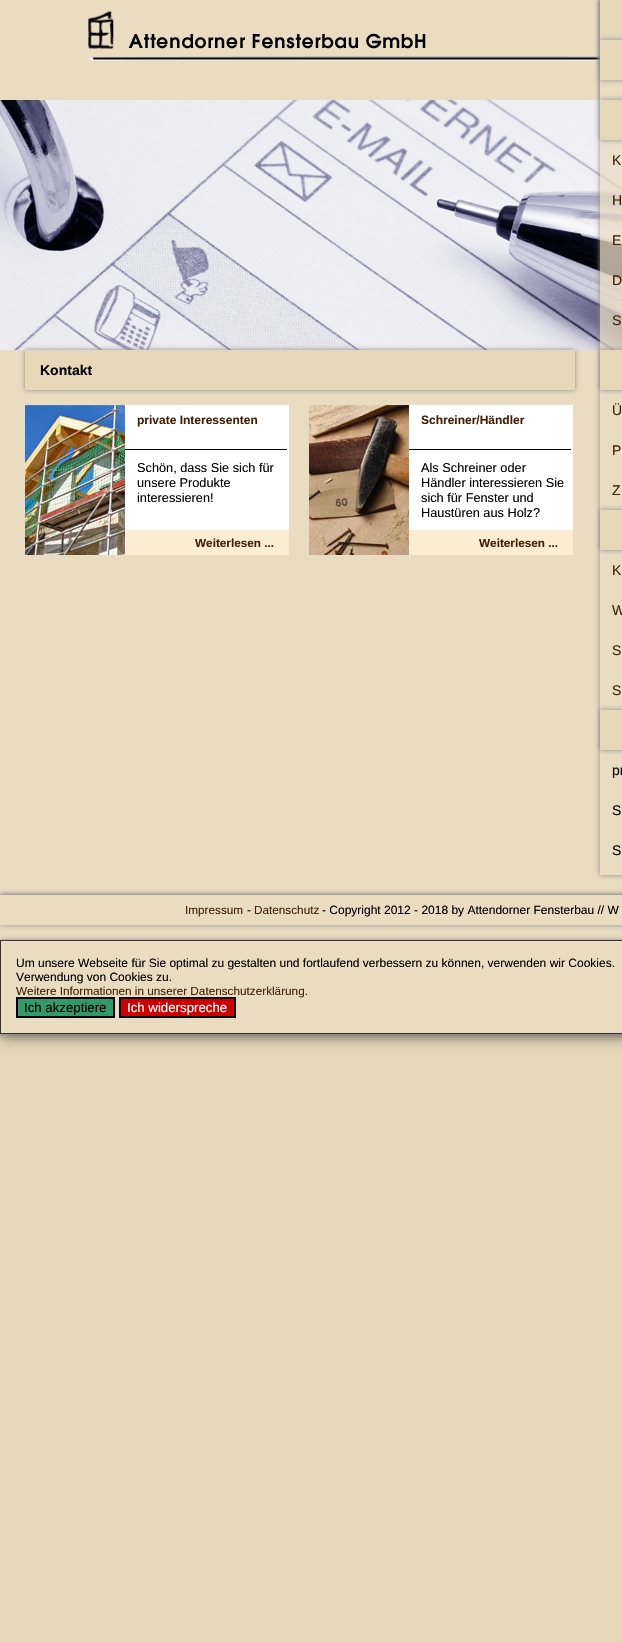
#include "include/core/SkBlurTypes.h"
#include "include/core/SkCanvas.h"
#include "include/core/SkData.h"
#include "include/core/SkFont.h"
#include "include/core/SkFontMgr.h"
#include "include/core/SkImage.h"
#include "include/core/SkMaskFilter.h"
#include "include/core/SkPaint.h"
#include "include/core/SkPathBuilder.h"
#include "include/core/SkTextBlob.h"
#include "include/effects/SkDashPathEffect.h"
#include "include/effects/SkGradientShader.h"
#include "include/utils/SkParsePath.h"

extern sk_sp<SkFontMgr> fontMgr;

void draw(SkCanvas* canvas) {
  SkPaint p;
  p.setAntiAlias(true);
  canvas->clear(SkColorSetRGB(230, 215, 185));
  p.setColor(SkColorSetRGB(51, 51, 51));
  p.setMaskFilter(SkMaskFilter::MakeBlur(kNormal_SkBlurStyle, 7.5f));
  canvas->drawRect(SkRect::MakeLTRB(0, 0, 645, 1034), p);
  p.setMaskFilter(nullptr);
  p.setColor(SkColorSetRGB(234, 220, 193));
  canvas->drawRect(SkRect::MakeLTRB(0, 0, 622, 895), p);
  canvas->drawImageRect(SkImages::DeferredFromEncodedData(SkData::MakeFromFileName("images/1.png")), SkRect::MakeLTRB(88, 10, 600, 61), SkSamplingOptions());
  canvas->drawImageRect(SkImages::DeferredFromEncodedData(SkData::MakeFromFileName("images/2.png")), SkRect::MakeLTRB(0, 100, 622, 350), SkSamplingOptions());
  p.setColor(SkColorSetRGB(136, 136, 136));
  p.setMaskFilter(SkMaskFilter::MakeBlur(kNormal_SkBlurStyle, 2.5f));
  canvas->drawRect(SkRect::MakeLTRB(25, 350, 575, 390), p);
  p.setMaskFilter(nullptr);
  p.setColor(SkColorSetRGB(230, 215, 185));
  canvas->drawRect(SkRect::MakeLTRB(25, 350, 575, 390), p);
  p.setColor(SK_ColorWHITE);
  canvas->drawRect(SkRect::MakeLTRB(125, 405, 289, 530), p);
  canvas->drawImageRect(SkImages::DeferredFromEncodedData(SkData::MakeFromFileName("images/3.png")), SkRect::MakeLTRB(25, 405, 125, 555), SkSamplingOptions());
  p.setColor(SK_ColorBLACK);
  canvas->drawRect(SkRect::MakeLTRB(125, 449, 287, 450), p);
  p.setColor(SkColorSetRGB(251, 237, 210));
  canvas->drawRect(SkRect::MakeLTRB(125, 530, 289, 555), p);
  p.setColor(SK_ColorWHITE);
  canvas->drawRect(SkRect::MakeLTRB(409, 405, 573, 530), p);
  canvas->drawImageRect(SkImages::DeferredFromEncodedData(SkData::MakeFromFileName("images/4.png")), SkRect::MakeLTRB(309, 405, 409, 555), SkSamplingOptions());
  p.setColor(SK_ColorBLACK);
  canvas->drawRect(SkRect::MakeLTRB(409, 449, 571, 450), p);
  p.setColor(SkColorSetRGB(251, 237, 210));
  canvas->drawRect(SkRect::MakeLTRB(409, 530, 573, 555), p);
  canvas->save();
  canvas->clipPath(SkPathBuilder(SkPathFillType::kEvenOdd).moveTo(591, 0).lineTo(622, 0).lineTo(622, 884).lineTo(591, 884).close().moveTo(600, 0).lineTo(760, 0).lineTo(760, 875).lineTo(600, 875).close().detach(), true);
  p.setColor(SkColorSetRGB(136, 136, 136));
  p.setMaskFilter(SkMaskFilter::MakeBlur(kNormal_SkBlurStyle, 2.5f));
  canvas->drawRect(SkRect::MakeLTRB(600, 0, 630, 875), p);
  p.setMaskFilter(nullptr);
  canvas->restore();
  p.setColor(SkColorSetARGB(128, 233, 219, 193));
  canvas->drawRect(SkRect::MakeLTRB(600, 100, 622, 350), p);
  canvas->save();
  canvas->clipRect(SkRect::MakeLTRB(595, 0, 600, 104));
  p.setColor(SkColorSetRGB(136, 136, 136));
  p.setMaskFilter(SkMaskFilter::MakeBlur(kNormal_SkBlurStyle, 2.5f));
  canvas->drawRect(SkRect::MakeLTRB(600, 0, 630, 100), p);
  p.setMaskFilter(nullptr);
  canvas->restore();
  p.setMaskFilter(SkMaskFilter::MakeBlur(kNormal_SkBlurStyle, 2.5f));
  canvas->drawRect(SkRect::MakeLTRB(600, 0, 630, 40), p);
  p.setMaskFilter(nullptr);
  p.setColor(SkColorSetRGB(230, 215, 185));
  canvas->drawRect(SkRect::MakeLTRB(600, 0, 622, 40), p);
  p.setColor(SkColorSetRGB(136, 136, 136));
  p.setMaskFilter(SkMaskFilter::MakeBlur(kNormal_SkBlurStyle, 2.5f));
  canvas->drawRect(SkRect::MakeLTRB(600, 40, 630, 80), p);
  p.setMaskFilter(nullptr);
  p.setColor(SkColorSetRGB(230, 215, 185));
  canvas->drawRect(SkRect::MakeLTRB(600, 40, 622, 80), p);
  p.setColor(SkColorSetARGB(128, 233, 219, 193));
  canvas->drawRect(SkRect::MakeLTRB(600, 140, 622, 350), p);
  p.setColor(SkColorSetRGB(136, 136, 136));
  p.setMaskFilter(SkMaskFilter::MakeBlur(kNormal_SkBlurStyle, 2.5f));
  canvas->drawRect(SkRect::MakeLTRB(600, 100, 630, 140), p);
  p.setMaskFilter(nullptr);
  p.setColor(SkColorSetRGB(230, 215, 185));
  canvas->drawRect(SkRect::MakeLTRB(600, 100, 622, 140), p);
  p.setColor(SkColorSetRGB(136, 136, 136));
  p.setMaskFilter(SkMaskFilter::MakeBlur(kNormal_SkBlurStyle, 2.5f));
  canvas->drawRect(SkRect::MakeLTRB(600, 350, 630, 390), p);
  p.setMaskFilter(nullptr);
  p.setColor(SkColorSetRGB(230, 215, 185));
  canvas->drawRect(SkRect::MakeLTRB(600, 350, 622, 390), p);
  p.setColor(SkColorSetRGB(136, 136, 136));
  p.setMaskFilter(SkMaskFilter::MakeBlur(kNormal_SkBlurStyle, 2.5f));
  canvas->drawRect(SkRect::MakeLTRB(600, 510, 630, 550), p);
  p.setMaskFilter(nullptr);
  p.setColor(SkColorSetRGB(230, 215, 185));
  canvas->drawRect(SkRect::MakeLTRB(600, 510, 622, 550), p);
  p.setColor(SkColorSetRGB(136, 136, 136));
  p.setMaskFilter(SkMaskFilter::MakeBlur(kNormal_SkBlurStyle, 2.5f));
  canvas->drawRect(SkRect::MakeLTRB(600, 710, 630, 750), p);
  p.setMaskFilter(nullptr);
  p.setColor(SkColorSetRGB(230, 215, 185));
  canvas->drawRect(SkRect::MakeLTRB(600, 710, 622, 750), p);
  p.setColor(SkColorSetRGB(136, 136, 136));
  p.setMaskFilter(SkMaskFilter::MakeBlur(kNormal_SkBlurStyle, 2.5f));
  canvas->drawRect(SkRect::MakeLTRB(0, 895, 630, 940), p);
  p.setMaskFilter(nullptr);
  p.setColor(SkColorSetRGB(234, 220, 193));
  canvas->drawRect(SkRect::MakeLTRB(0, 895, 622, 940), p);
  canvas->save();
  canvas->clipPath(SkPathBuilder(SkPathFillType::kEvenOdd).moveTo(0, 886).lineTo(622, 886).lineTo(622, 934).lineTo(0, 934).close().moveTo(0, 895).lineTo(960, 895).lineTo(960, 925).lineTo(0, 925).close().detach(), true);
  p.setColor(SkColorSetRGB(136, 136, 136));
  p.setMaskFilter(SkMaskFilter::MakeBlur(kNormal_SkBlurStyle, 2.5f));
  canvas->drawRect(SkRect::MakeLTRB(0, 895, 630, 925), p);
  p.setMaskFilter(nullptr);
  canvas->restore();
  p.setMaskFilter(SkMaskFilter::MakeBlur(kNormal_SkBlurStyle, 2.5f));
  canvas->drawRect(SkRect::MakeLTRB(0, 940, 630, 1034), p);
  p.setMaskFilter(nullptr);
  p.setColor(SkColorSetRGB(234, 220, 193));
  canvas->drawRect(SkRect::MakeLTRB(0.5f, 940.5f, 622.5f, 1033.5f), p);
  p.setStyle(SkPaint::kStroke_Style);
  p.setStrokeWidth(1);
  p.setColor(SkColorSetRGB(51, 51, 51));
  canvas->drawRect(SkRect::MakeLTRB(0.5f, 940.5f, 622.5f, 1033.5f), p);
  SkFont font1(fontMgr->matchFamilyStyle("Liberation Sans", SkFontStyle::Bold()), 14);
  font1.setSubpixel(true);
  p.setStyle(SkPaint::kFill_Style);
  p.setColor(SK_ColorBLACK);
  canvas->drawString("Kontakt", 40, 375, font1, p);
  SkFont font2(fontMgr->matchFamilyStyle("Liberation Sans", SkFontStyle::Bold()), 12);
  font2.setSubpixel(true);
  p.setColor(SkColorSetRGB(67, 32, 5));
  canvas->drawString("private Interessenten", 137, 424, font2, p);
  SkFont font3(fontMgr->matchFamilyStyle("Liberation Sans", SkFontStyle::Normal()), 12.75f);
  font3.setSubpixel(true);
  p.setColor(SK_ColorBLACK);
  canvas->drawString("Schön, dass Sie sich für", 137, 472, font3, p);
  canvas->drawString("unsere Produkte", 137, 487, font3, p);
  canvas->drawString("interessieren!", 137, 502, font3, p);
  SkFont font4(fontMgr->matchFamilyStyle("Liberation Sans", SkFontStyle::Bold()), 11.75f);
  font4.setSubpixel(true);
  p.setColor(SkColorSetRGB(67, 32, 5));
  canvas->drawString("Weiterlesen ...", 195, 547, font4, p);
  canvas->drawString("Schreiner/Händler", 421, 424, font2, p);
  p.setColor(SK_ColorBLACK);
  canvas->drawString("Als Schreiner oder", 421, 472, font3, p);
  canvas->drawString("Händler interessieren Sie", 421, 487, font3, p);
  canvas->drawString("sich für Fenster und", 421, 502, font3, p);
  canvas->drawString("Haustüren aus Holz?", 421, 517, font3, p);
  p.setColor(SkColorSetRGB(67, 32, 5));
  canvas->drawString("Weiterlesen ...", 479, 547, font4, p);
  SkFont font5(fontMgr->matchFamilyStyle("Liberation Sans", SkFontStyle::Normal()), 14);
  font5.setSubpixel(true);
  canvas->drawString("K", 612, 165, font5, p);
  canvas->drawString("H", 612, 205, font5, p);
  canvas->drawString("E", 612, 245, font5, p);
  canvas->drawString("D", 612, 285, font5, p);
  canvas->drawString("S", 612, 325, font5, p);
  canvas->drawString("Ü", 612, 415, font5, p);
  canvas->drawString("P", 612, 455, font5, p);
  canvas->drawString("Z", 612, 495, font5, p);
  canvas->drawString("K", 612, 575, font5, p);
  canvas->drawString("W", 612, 615, font5, p);
  canvas->drawString("S", 612, 655, font5, p);
  canvas->drawString("S", 612, 695, font5, p);
  p.setColor(SK_ColorBLACK);
  canvas->drawString("pr", 612, 775, font5, p);
  canvas->drawString("S", 612, 815, font5, p);
  canvas->drawString("S", 612, 855, font5, p);
  SkFont font6(fontMgr->matchFamilyStyle("Liberation Sans", SkFontStyle::Normal()), 11.75f);
  font6.setSubpixel(true);
  p.setColor(SkColorSetRGB(67, 32, 5));
  canvas->drawString("Impressum", 185, 914, font6, p);
  SkFont font7(fontMgr->matchFamilyStyle("Liberation Sans", SkFontStyle::Normal()), 12);
  font7.setSubpixel(true);
  p.setColor(SK_ColorBLACK);
  canvas->drawString("-", 247, 914, font7, p);
  p.setColor(SkColorSetRGB(67, 32, 5));
  canvas->drawString("Datenschutz", 254, 914, font6, p);
  p.setColor(SK_ColorBLACK);
  canvas->drawString("- Copyright 2012 - 2018 by Attendorner Fensterbau // W", 322, 914, font7, p);
  canvas->drawString("Um unsere Webseite für Sie optimal zu gestalten und fortlaufend verbessern zu können, verwenden wir Cookies.", 16, 967, font7, p);
  canvas->drawString("Verwendung von Cookies zu.", 16, 981, font7, p);
  p.setColor(SkColorSetRGB(67, 32, 5));
  canvas->drawString("Weitere Informationen in unserer Datenschutzerklärung.", 16, 995, font6, p);
  p.setColor(SkColorSetRGB(51, 153, 102));
  canvas->drawRect(SkRect::MakeLTRB(17, 998, 114, 1017), p);
  p.setStyle(SkPaint::kStroke_Style);
  p.setStrokeWidth(2);
  p.setColor(SK_ColorBLACK);
  canvas->drawRect(SkRect::MakeLTRB(17, 998, 114, 1017), p);
  SkFont font8(fontMgr->matchFamilyStyle("Liberation Sans", SkFontStyle::Normal()), 13.25f);
  font8.setSubpixel(true);
  p.setStyle(SkPaint::kFill_Style);
  canvas->drawString("Ich akzeptiere", 24, 1012, font8, p);
  p.setColor(SkColorSetRGB(204, 0, 0));
  canvas->drawRect(SkRect::MakeLTRB(120, 998, 235, 1017), p);
  p.setStyle(SkPaint::kStroke_Style);
  p.setColor(SK_ColorBLACK);
  canvas->drawRect(SkRect::MakeLTRB(120, 998, 235, 1017), p);
  p.setStyle(SkPaint::kFill_Style);
  p.setColor(SK_ColorWHITE);
  canvas->drawString("Ich widerspreche", 127, 1012, font8, p);
}
